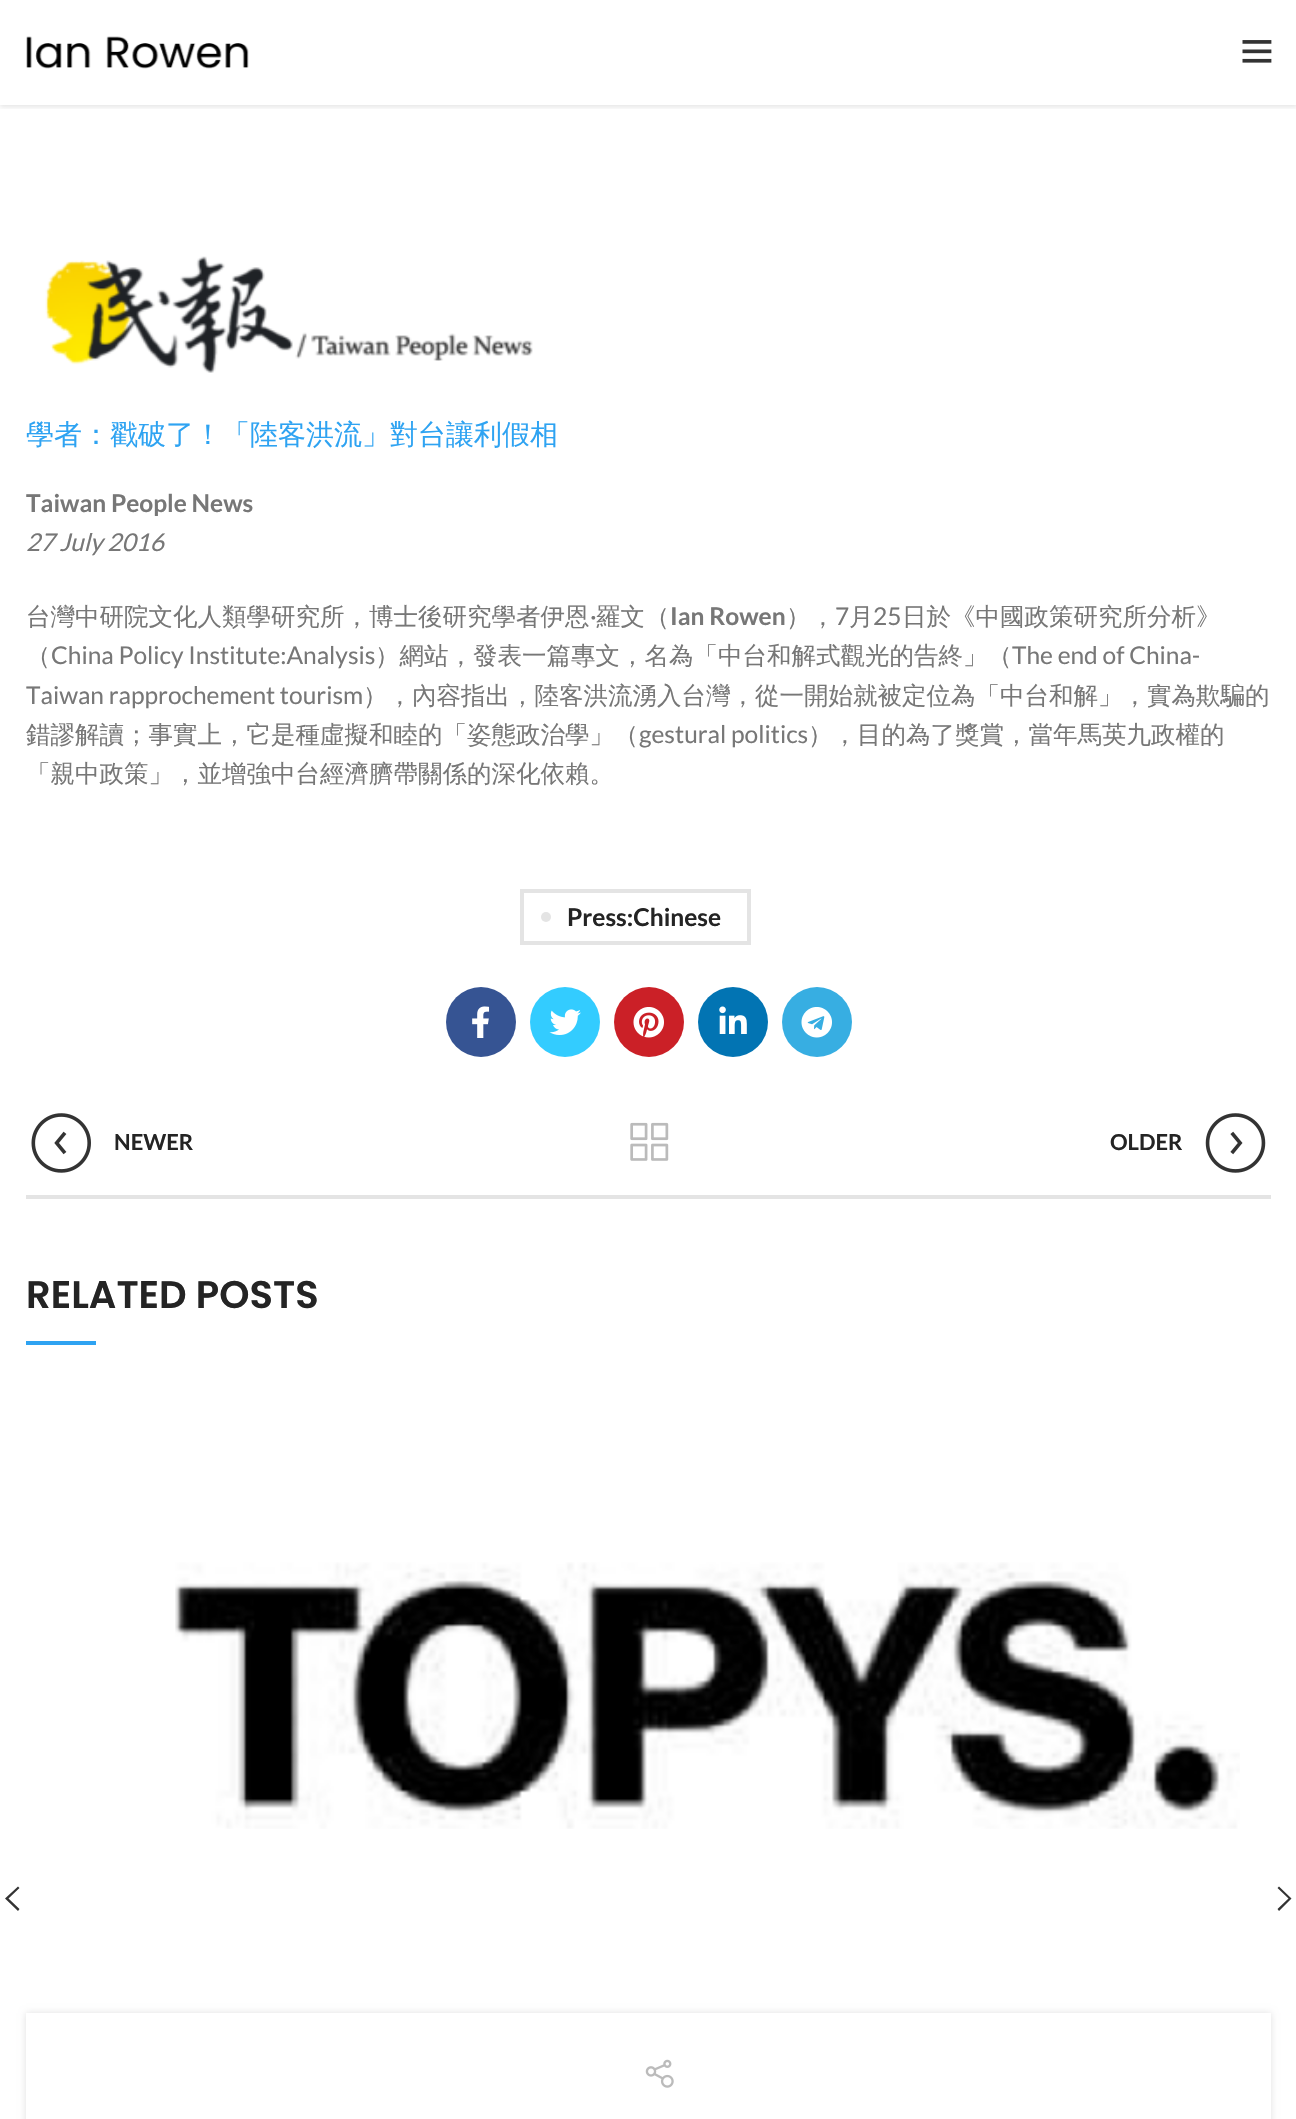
#include "include/core/SkBlurTypes.h"
#include "include/core/SkCanvas.h"
#include "include/core/SkData.h"
#include "include/core/SkFont.h"
#include "include/core/SkFontMgr.h"
#include "include/core/SkImage.h"
#include "include/core/SkMaskFilter.h"
#include "include/core/SkPaint.h"
#include "include/core/SkPathBuilder.h"
#include "include/core/SkTextBlob.h"
#include "include/effects/SkDashPathEffect.h"
#include "include/effects/SkGradientShader.h"
#include "include/utils/SkParsePath.h"

extern sk_sp<SkFontMgr> fontMgr;

void draw(SkCanvas* canvas) {
  SkPaint p;
  p.setAntiAlias(true);
  canvas->clear(SK_ColorWHITE);
  canvas->save();
  canvas->clipRect(SkRect::MakeLTRB(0, 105, 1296, 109));
  p.setColor(SkColorSetARGB(26, 0, 0, 0));
  p.setMaskFilter(SkMaskFilter::MakeBlur(kNormal_SkBlurStyle, 2.5f));
  canvas->drawRect(SkRect::MakeLTRB(0, 2, 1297, 107), p);
  p.setMaskFilter(nullptr);
  canvas->restore();
  canvas->drawImageRect(SkImages::DeferredFromEncodedData(SkData::MakeFromFileName("images/1.png")), SkRect::MakeLTRB(26, 36, 249, 69), SkSamplingOptions());
  canvas->drawImageRect(SkImages::DeferredFromEncodedData(SkData::MakeFromFileName("images/2.png")), SkRect::MakeLTRB(1242, 40, 1272, 63), SkSamplingOptions());
  canvas->drawImageRect(SkImages::DeferredFromEncodedData(SkData::MakeFromFileName("images/3.png")), SkRect::MakeLTRB(45, 256, 533, 373), SkSamplingOptions());
  p.setStyle(SkPaint::kStroke_Style);
  p.setStrokeWidth(4);
  p.setColor(SkColorSetRGB(228, 228, 228));
  canvas->drawRect(SkRect::MakeLTRB(522, 891, 749, 943), p);
  p.setStyle(SkPaint::kFill_Style);
  canvas->drawCircle(546, 917, 5, p);
  p.setColor(SkColorSetRGB(54, 84, 147));
  canvas->drawCircle(481, 1022, 35, p);
  canvas->drawImageRect(SkImages::DeferredFromEncodedData(SkData::MakeFromFileName("images/4.png")), SkRect::MakeLTRB(472, 1006, 490, 1038), SkSamplingOptions());
  p.setColor(SkColorSetRGB(51, 204, 255));
  canvas->drawCircle(565, 1022, 35, p);
  canvas->drawImageRect(SkImages::DeferredFromEncodedData(SkData::MakeFromFileName("images/5.png")), SkRect::MakeLTRB(549, 1009, 581, 1035), SkSamplingOptions());
  p.setColor(SkColorSetRGB(203, 32, 39));
  canvas->drawCircle(649, 1022, 35, p);
  canvas->drawImageRect(SkImages::DeferredFromEncodedData(SkData::MakeFromFileName("images/6.png")), SkRect::MakeLTRB(633, 1007, 664, 1038), SkSamplingOptions());
  p.setColor(SkColorSetRGB(2, 116, 179));
  canvas->drawCircle(733, 1022, 35, p);
  canvas->drawImageRect(SkImages::DeferredFromEncodedData(SkData::MakeFromFileName("images/7.png")), SkRect::MakeLTRB(719, 1006, 747, 1034), SkSamplingOptions());
  p.setColor(SkColorSetRGB(55, 174, 226));
  canvas->drawCircle(817, 1022, 35, p);
  canvas->drawImageRect(SkImages::DeferredFromEncodedData(SkData::MakeFromFileName("images/8.png")), SkRect::MakeLTRB(801, 1007, 832, 1038), SkSamplingOptions());
  p.setColor(SkColorSetRGB(228, 228, 228));
  canvas->drawRect(SkRect::MakeLTRB(26, 1195, 1271, 1199), p);
  canvas->drawImageRect(SkImages::DeferredFromEncodedData(SkData::MakeFromFileName("images/9.png")), SkRect::MakeLTRB(31, 1113, 91, 1173), SkSamplingOptions());
  canvas->drawImageRect(SkImages::DeferredFromEncodedData(SkData::MakeFromFileName("images/10.png")), SkRect::MakeLTRB(630, 1122, 669, 1161), SkSamplingOptions());
  canvas->drawImageRect(SkImages::DeferredFromEncodedData(SkData::MakeFromFileName("images/11.png")), SkRect::MakeLTRB(1205, 1113, 1266, 1173), SkSamplingOptions());
  p.setColor(SkColorSetRGB(46, 163, 242));
  canvas->drawRect(SkRect::MakeLTRB(26, 1341, 96, 1345), p);
  canvas->drawImageRect(SkImages::DeferredFromEncodedData(SkData::MakeFromFileName("images/12.png")), SkRect::MakeLTRB(175, 1562, 1240, 1829), SkSamplingOptions());
  p.setColor(SkColorSetARGB(31, 0, 0, 0));
  p.setMaskFilter(SkMaskFilter::MakeBlur(kNormal_SkBlurStyle, 3.5f));
  canvas->drawRect(SkRect::MakeLTRB(26, 2013, 1271, 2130), p);
  p.setMaskFilter(nullptr);
  p.setColor(SK_ColorWHITE);
  canvas->drawRect(SkRect::MakeLTRB(26, 2013, 1271, 2119), p);
  canvas->drawImageRect(SkImages::DeferredFromEncodedData(SkData::MakeFromFileName("images/13.png")), SkRect::MakeLTRB(645, 2059, 674, 2088), SkSamplingOptions());
  p.setColor(SkColorSetRGB(51, 51, 51));
  canvas->drawPath(SkPathBuilder().moveTo(19.5f, 1888).lineTo(8.5f, 1898.5f).lineTo(19.5f, 1909).lineTo(18, 1911).lineTo(5, 1898.5f).lineTo(18, 1886.5f).close().detach(), p);
  canvas->drawPath(SkPathBuilder().moveTo(1279, 1886.5f).lineTo(1291.5f, 1898.5f).lineTo(1279, 1911).lineTo(1277.5f, 1909).lineTo(1288.5f, 1898.5f).lineTo(1277.5f, 1888).close().detach(), p);
  SkFont font1(fontMgr->matchFamilyStyle("WenQuanYi Zen Hei", SkFontStyle(500, SkFontStyle::kNormal_Width, SkFontStyle::kUpright_Slant)), 28);
  font1.setSubpixel(true);
  p.setColor(SkColorSetRGB(46, 163, 242));
  canvas->drawString("學者：戳破了！「陸客洪流」對台讓利假相", 26, 444, font1, p);
  SkFont font2(fontMgr->matchFamilyStyle("Lato", SkFontStyle::Bold()), 24.5f);
  font2.setSubpixel(true);
  p.setColor(SkColorSetRGB(119, 119, 119));
  canvas->drawString("Taiwan People News", 26, 512, font2, p);
  SkFont font3(fontMgr->matchFamilyStyle("Lato", SkFontStyle::Italic()), 24.5f);
  font3.setSubpixel(true);
  canvas->drawString("27 July 2016", 26, 551, font3, p);
  SkFont font4(fontMgr->matchFamilyStyle("WenQuanYi Zen Hei", SkFontStyle(500, SkFontStyle::kNormal_Width, SkFontStyle::kUpright_Slant)), 24.5f);
  font4.setSubpixel(true);
  canvas->drawString("台灣中研院文化人類學研究所，博士後研究學者伊恩", 26, 625, font4, p);
  SkFont font5(fontMgr->matchFamilyStyle("Lato", SkFontStyle::Normal()), 24.5f);
  font5.setSubpixel(true);
  canvas->drawString("·", 590, 625, font5, p);
  canvas->drawString("羅文（", 596, 625, font4, p);
  canvas->drawString("Ian Rowen", 670, 625, font2, p);
  canvas->drawString("），", 786, 625, font4, p);
  canvas->drawString("7", 835, 625, font5, p);
  canvas->drawString("月", 849, 625, font4, p);
  canvas->drawString("25", 873, 625, font5, p);
  canvas->drawString("日於《中國政策研究所分析》", 902, 625, font4, p);
  canvas->drawString("（", 26, 664, font4, p);
  canvas->drawString("China Policy Institute:Analysis", 51, 664, font5, p);
  canvas->drawString("）網站，發表一篇專文，名為「中台和解式觀光的告終」（", 375, 664, font4, p);
  canvas->drawString("The end of China-", 1012, 664, font5, p);
  canvas->drawString("Taiwan rapprochement tourism", 26, 704, font5, p);
  canvas->drawString("），內容指出，陸客洪流湧入台灣，從一開始就被定位為「中台和解」，實為欺騙的", 363, 704, font4, p);
  canvas->drawString("錯謬解讀；事實上，它是種虛擬和睦的「姿態政治學」（", 26, 743, font4, p);
  canvas->drawString("gestural politics", 639, 743, font5, p);
  canvas->drawString("），目的為了獎賞，當年馬英九政權的", 808, 743, font4, p);
  canvas->drawString("「親中政策」，並增強中台經濟臍帶關係的深化依賴。", 26, 782, font4, p);
  p.setColor(SkColorSetRGB(36, 36, 36));
  canvas->drawString("Press:Chinese", 567, 926, font2, p);
  SkFont font6(fontMgr->matchFamilyStyle("Lato", SkFontStyle::Bold()), 22);
  font6.setSubpixel(true);
  canvas->drawString("NEWER", 114, 1150, font6, p);
  canvas->drawString("OLDER", 1110, 1150, font6, p);
  SkFont font7(fontMgr->matchFamilyStyle("Poppins", SkFontStyle(600, SkFontStyle::kNormal_Width, SkFontStyle::kUpright_Slant)), 38.5f);
  font7.setSubpixel(true);
  canvas->drawString("RELATED POSTS", 26, 1308, font7, p);
}
